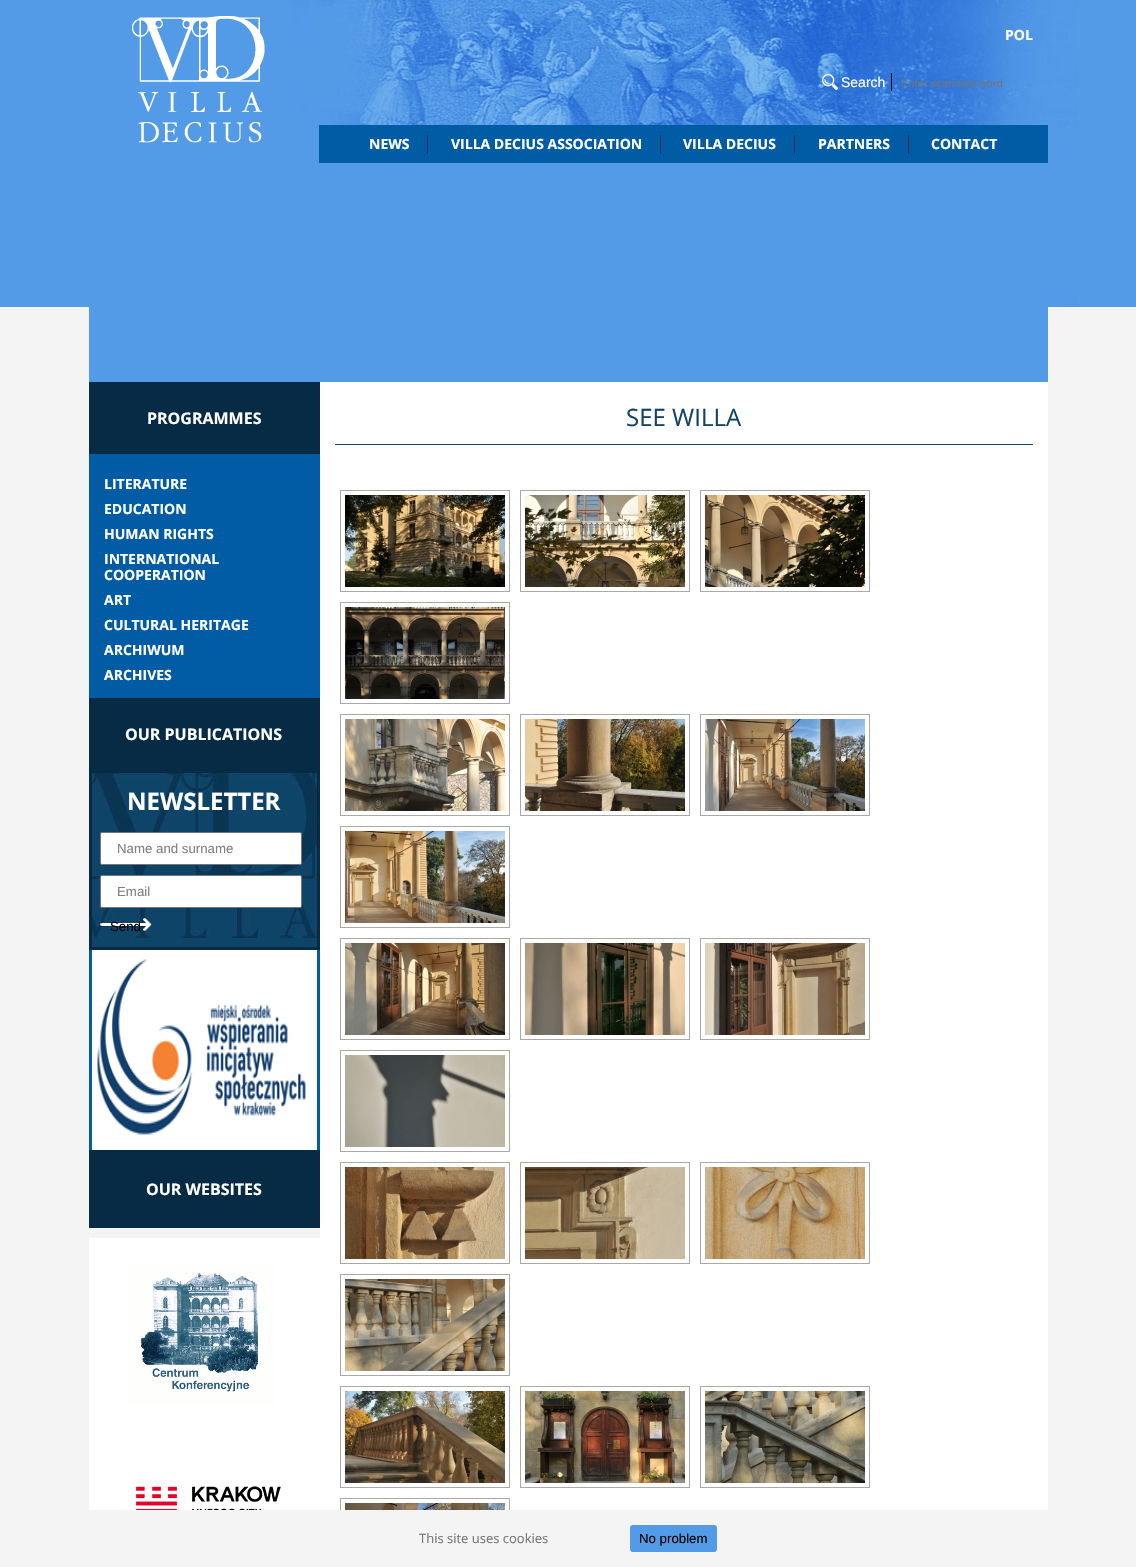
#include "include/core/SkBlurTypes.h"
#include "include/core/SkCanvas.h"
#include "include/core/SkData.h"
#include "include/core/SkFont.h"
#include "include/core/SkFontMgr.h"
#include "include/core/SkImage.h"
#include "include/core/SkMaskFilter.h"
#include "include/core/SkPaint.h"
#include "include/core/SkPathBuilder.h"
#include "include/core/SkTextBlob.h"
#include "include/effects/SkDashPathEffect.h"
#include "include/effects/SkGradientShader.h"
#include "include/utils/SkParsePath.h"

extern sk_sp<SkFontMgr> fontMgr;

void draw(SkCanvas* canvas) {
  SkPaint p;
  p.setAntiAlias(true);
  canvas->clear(SkColorSetRGB(244, 244, 244));
  canvas->drawImageRect(SkImages::DeferredFromEncodedData(SkData::MakeFromFileName("images/1.png")), SkRect::MakeLTRB(0, 0, 1136, 307), SkSamplingOptions());
  canvas->drawImageRect(SkImages::DeferredFromEncodedData(SkData::MakeFromFileName("images/2.png")), SkRect::MakeLTRB(132, 16, 265, 143), SkSamplingOptions());
  canvas->drawImageRect(SkImages::DeferredFromEncodedData(SkData::MakeFromFileName("images/3.png")), SkRect::MakeLTRB(822, 74, 838, 90), SkSamplingOptions());
  p.setColor(SK_ColorBLACK);
  canvas->drawRect(SkRect::MakeLTRB(891, 73, 892, 91), p);
  p.setColor(SkColorSetRGB(1, 92, 165));
  canvas->drawRect(SkRect::MakeLTRB(319, 125, 1048, 163), p);
  canvas->drawImageRect(SkImages::DeferredFromEncodedData(SkData::MakeFromFileName("images/4.png")), SkRect::MakeLTRB(427, 135, 428, 154), SkSamplingOptions());
  canvas->drawImageRect(SkImages::DeferredFromEncodedData(SkData::MakeFromFileName("images/4.png")), SkRect::MakeLTRB(660, 135, 661, 154), SkSamplingOptions());
  canvas->drawImageRect(SkImages::DeferredFromEncodedData(SkData::MakeFromFileName("images/4.png")), SkRect::MakeLTRB(794, 135, 795, 154), SkSamplingOptions());
  canvas->drawImageRect(SkImages::DeferredFromEncodedData(SkData::MakeFromFileName("images/4.png")), SkRect::MakeLTRB(908, 135, 909, 154), SkSamplingOptions());
  p.setColor(SkColorSetRGB(83, 155, 231));
  canvas->drawRect(SkRect::MakeLTRB(89, 163, 1048, 382), p);
  p.setColor(SkColorSetRGB(1, 92, 165));
  canvas->drawRect(SkRect::MakeLTRB(89, 454, 320, 1150), p);
  p.setColor(SkColorSetRGB(7, 43, 69));
  canvas->drawRect(SkRect::MakeLTRB(89, 382, 320, 454), p);
  canvas->drawRect(SkRect::MakeLTRB(89, 698, 320, 770), p);
  canvas->drawImageRect(SkImages::DeferredFromEncodedData(SkData::MakeFromFileName("images/5.png")), SkRect::MakeLTRB(89, 770, 320, 950), SkSamplingOptions());
  p.setColor(SK_ColorWHITE);
  canvas->drawRoundRect(SkRect::MakeLTRB(100.5f, 832.5f, 301.5f, 864.5f), 1.5f, 1.5f, p);
  p.setStyle(SkPaint::kStroke_Style);
  p.setStrokeWidth(1);
  p.setColor(SkColorSetRGB(118, 118, 118));
  canvas->drawRoundRect(SkRect::MakeLTRB(100.5f, 832.5f, 301.5f, 864.5f), 1.5f, 1.5f, p);
  p.setStyle(SkPaint::kFill_Style);
  p.setColor(SK_ColorWHITE);
  canvas->drawRoundRect(SkRect::MakeLTRB(100.5f, 875.5f, 301.5f, 907.5f), 1.5f, 1.5f, p);
  p.setStyle(SkPaint::kStroke_Style);
  p.setColor(SkColorSetRGB(118, 118, 118));
  canvas->drawRoundRect(SkRect::MakeLTRB(100.5f, 875.5f, 301.5f, 907.5f), 1.5f, 1.5f, p);
  canvas->drawImageRect(SkImages::DeferredFromEncodedData(SkData::MakeFromFileName("images/6.png")), SkRect::MakeLTRB(100, 918, 152, 932), SkSamplingOptions());
  canvas->drawImageRect(SkImages::DeferredFromEncodedData(SkData::MakeFromFileName("images/7.png")), SkRect::MakeLTRB(92, 950, 317, 1150), SkSamplingOptions());
  p.setStyle(SkPaint::kFill_Style);
  p.setColor(SkColorSetRGB(7, 43, 69));
  canvas->drawRect(SkRect::MakeLTRB(89, 1150, 320, 1228), p);
  canvas->drawImageRect(SkImages::DeferredFromEncodedData(SkData::MakeFromFileName("images/8.png")), SkRect::MakeLTRB(89, 1238, 320, 1438), SkSamplingOptions());
  canvas->drawImageRect(SkImages::DeferredFromEncodedData(SkData::MakeFromFileName("images/9.png")), SkRect::MakeLTRB(89, 1438, 320, 1510), SkSamplingOptions());
  p.setColor(SK_ColorWHITE);
  canvas->drawRect(SkRect::MakeLTRB(320, 382, 1048, 1510), p);
  p.setColor(SkColorSetRGB(15, 68, 105));
  canvas->drawRect(SkRect::MakeLTRB(335, 444, 1033, 445), p);
  p.setStyle(SkPaint::kStroke_Style);
  p.setColor(SkColorSetRGB(169, 169, 169));
  canvas->drawRect(SkRect::MakeLTRB(340.5f, 490.5f, 509.5f, 591.5f), p);
  canvas->drawImageRect(SkImages::DeferredFromEncodedData(SkData::MakeFromFileName("images/10.png")), SkRect::MakeLTRB(345, 495, 505, 587), SkSamplingOptions());
  canvas->drawRect(SkRect::MakeLTRB(520.5f, 490.5f, 689.5f, 591.5f), p);
  canvas->drawImageRect(SkImages::DeferredFromEncodedData(SkData::MakeFromFileName("images/11.png")), SkRect::MakeLTRB(525, 495, 685, 587), SkSamplingOptions());
  canvas->drawRect(SkRect::MakeLTRB(700.5f, 490.5f, 869.5f, 591.5f), p);
  canvas->drawImageRect(SkImages::DeferredFromEncodedData(SkData::MakeFromFileName("images/12.png")), SkRect::MakeLTRB(705, 495, 865, 587), SkSamplingOptions());
  canvas->drawRect(SkRect::MakeLTRB(340.5f, 602.5f, 509.5f, 703.5f), p);
  canvas->drawImageRect(SkImages::DeferredFromEncodedData(SkData::MakeFromFileName("images/13.png")), SkRect::MakeLTRB(345, 607, 505, 699), SkSamplingOptions());
  canvas->drawRect(SkRect::MakeLTRB(340.5f, 714.5f, 509.5f, 815.5f), p);
  canvas->drawImageRect(SkImages::DeferredFromEncodedData(SkData::MakeFromFileName("images/14.png")), SkRect::MakeLTRB(345, 719, 505, 811), SkSamplingOptions());
  canvas->drawRect(SkRect::MakeLTRB(520.5f, 714.5f, 689.5f, 815.5f), p);
  canvas->drawImageRect(SkImages::DeferredFromEncodedData(SkData::MakeFromFileName("images/15.png")), SkRect::MakeLTRB(525, 719, 685, 811), SkSamplingOptions());
  canvas->drawRect(SkRect::MakeLTRB(700.5f, 714.5f, 869.5f, 815.5f), p);
  canvas->drawImageRect(SkImages::DeferredFromEncodedData(SkData::MakeFromFileName("images/16.png")), SkRect::MakeLTRB(705, 719, 865, 811), SkSamplingOptions());
  canvas->drawRect(SkRect::MakeLTRB(340.5f, 826.5f, 509.5f, 927.5f), p);
  canvas->drawImageRect(SkImages::DeferredFromEncodedData(SkData::MakeFromFileName("images/17.png")), SkRect::MakeLTRB(345, 831, 505, 923), SkSamplingOptions());
  canvas->drawRect(SkRect::MakeLTRB(340.5f, 938.5f, 509.5f, 1039.5f), p);
  canvas->drawImageRect(SkImages::DeferredFromEncodedData(SkData::MakeFromFileName("images/18.png")), SkRect::MakeLTRB(345, 943, 505, 1035), SkSamplingOptions());
  canvas->drawRect(SkRect::MakeLTRB(520.5f, 938.5f, 689.5f, 1039.5f), p);
  canvas->drawImageRect(SkImages::DeferredFromEncodedData(SkData::MakeFromFileName("images/19.png")), SkRect::MakeLTRB(525, 943, 685, 1035), SkSamplingOptions());
  canvas->drawRect(SkRect::MakeLTRB(700.5f, 938.5f, 869.5f, 1039.5f), p);
  canvas->drawImageRect(SkImages::DeferredFromEncodedData(SkData::MakeFromFileName("images/20.png")), SkRect::MakeLTRB(705, 943, 865, 1035), SkSamplingOptions());
  canvas->drawRect(SkRect::MakeLTRB(340.5f, 1050.5f, 509.5f, 1151.5f), p);
  canvas->drawImageRect(SkImages::DeferredFromEncodedData(SkData::MakeFromFileName("images/21.png")), SkRect::MakeLTRB(345, 1055, 505, 1147), SkSamplingOptions());
  canvas->drawRect(SkRect::MakeLTRB(340.5f, 1162.5f, 509.5f, 1263.5f), p);
  canvas->drawImageRect(SkImages::DeferredFromEncodedData(SkData::MakeFromFileName("images/22.png")), SkRect::MakeLTRB(345, 1167, 505, 1259), SkSamplingOptions());
  canvas->drawRect(SkRect::MakeLTRB(520.5f, 1162.5f, 689.5f, 1263.5f), p);
  canvas->drawImageRect(SkImages::DeferredFromEncodedData(SkData::MakeFromFileName("images/23.png")), SkRect::MakeLTRB(525, 1167, 685, 1259), SkSamplingOptions());
  canvas->drawRect(SkRect::MakeLTRB(700.5f, 1162.5f, 869.5f, 1263.5f), p);
  canvas->drawImageRect(SkImages::DeferredFromEncodedData(SkData::MakeFromFileName("images/24.png")), SkRect::MakeLTRB(705, 1167, 865, 1259), SkSamplingOptions());
  canvas->drawRect(SkRect::MakeLTRB(340.5f, 1274.5f, 509.5f, 1375.5f), p);
  canvas->drawImageRect(SkImages::DeferredFromEncodedData(SkData::MakeFromFileName("images/25.png")), SkRect::MakeLTRB(345, 1279, 505, 1371), SkSamplingOptions());
  canvas->drawRect(SkRect::MakeLTRB(340.5f, 1386.5f, 509.5f, 1487.5f), p);
  canvas->drawImageRect(SkImages::DeferredFromEncodedData(SkData::MakeFromFileName("images/26.png")), SkRect::MakeLTRB(345, 1391, 505, 1483), SkSamplingOptions());
  canvas->drawRect(SkRect::MakeLTRB(520.5f, 1386.5f, 689.5f, 1487.5f), p);
  canvas->drawImageRect(SkImages::DeferredFromEncodedData(SkData::MakeFromFileName("images/27.png")), SkRect::MakeLTRB(525, 1391, 685, 1483), SkSamplingOptions());
  canvas->drawRect(SkRect::MakeLTRB(700.5f, 1386.5f, 869.5f, 1487.5f), p);
  canvas->drawImageRect(SkImages::DeferredFromEncodedData(SkData::MakeFromFileName("images/28.png")), SkRect::MakeLTRB(705, 1391, 865, 1483), SkSamplingOptions());
  canvas->drawRect(SkRect::MakeLTRB(340.5f, 1498.5f, 509.5f, 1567.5f), p);
  canvas->drawImageRect(SkImages::DeferredFromEncodedData(SkData::MakeFromFileName("images/29.png")), SkRect::MakeLTRB(345, 1503, 505, 1510), SkSamplingOptions());
  p.setStyle(SkPaint::kFill_Style);
  p.setColor(SkColorSetRGB(244, 244, 244));
  canvas->drawRect(SkRect::MakeLTRB(340, 1510, 510, 1567), p);
  p.setColor(SkColorSetRGB(83, 155, 231));
  canvas->drawRoundRect(SkRect::MakeLTRB(630, 1525, 717, 1552), 3, 3, p);
  SkFont font1(fontMgr->matchFamilyStyle("Open Sans", SkFontStyle::Bold()), 14);
  font1.setSubpixel(true);
  p.setColor(SK_ColorWHITE);
  canvas->drawString("POL", 1005, 40, font1, p);
  SkFont font2(fontMgr->matchFamilyStyle("Liberation Sans", SkFontStyle::Normal()), 14);
  font2.setSubpixel(true);
  canvas->drawString("Search", 841, 87, font2, p);
  SkFont font3(fontMgr->matchFamilyStyle("Liberation Sans", SkFontStyle::Normal()), 11);
  font3.setSubpixel(true);
  p.setColor(SkColorSetRGB(117, 117, 117));
  canvas->drawString("Enter searched word", 901, 87, font3, p);
  p.setColor(SK_ColorWHITE);
  canvas->drawString("NEWS", 369, 149, font1, p);
  canvas->drawString("VILLA DECIUS ASSOCIATION", 451, 149, font1, p);
  canvas->drawString("VILLA DECIUS", 683, 149, font1, p);
  canvas->drawString("PARTNERS", 818, 149, font1, p);
  canvas->drawString("CONTACT", 931, 149, font1, p);
  SkFont font4(fontMgr->matchFamilyStyle("Open Sans", SkFontStyle::Bold()), 16);
  font4.setSubpixel(true);
  canvas->drawString("PROGRAMMES", 147, 424, font4, p);
  canvas->drawString("LITERATURE", 104, 489, font1, p);
  canvas->drawString("EDUCATION", 104, 514, font1, p);
  canvas->drawString("HUMAN RIGHTS", 104, 539, font1, p);
  canvas->drawString("INTERNATIONAL", 104, 564, font1, p);
  canvas->drawString("COOPERATION", 104, 580, font1, p);
  canvas->drawString("ART", 104, 605, font1, p);
  canvas->drawString("CULTURAL HERITAGE", 104, 630, font1, p);
  canvas->drawString("ARCHIWUM", 104, 655, font1, p);
  canvas->drawString("ARCHIVES", 104, 680, font1, p);
  canvas->drawString("OUR PUBLICATIONS", 125, 740, font4, p);
  SkFont font5(fontMgr->matchFamilyStyle("Open Sans", SkFontStyle::Bold()), 24);
  font5.setSubpixel(true);
  canvas->drawString("NEWSLETTER", 127, 810, font5, p);
  SkFont font6(fontMgr->matchFamilyStyle("Liberation Sans", SkFontStyle::Normal()), 13.25f);
  font6.setSubpixel(true);
  p.setColor(SkColorSetRGB(128, 128, 128));
  canvas->drawString("Name and surname", 117, 853, font6, p);
  canvas->drawString("Email", 117, 896, font6, p);
  p.setColor(SK_ColorBLACK);
  canvas->drawString("Send", 110, 931, font6, p);
  p.setColor(SK_ColorWHITE);
  canvas->drawString("OUR WEBSITES", 146, 1195, font4, p);
  SkFont font7(fontMgr->matchFamilyStyle("Open Sans", SkFontStyle::Normal()), 24);
  font7.setSubpixel(true);
  p.setColor(SkColorSetRGB(15, 68, 105));
  canvas->drawString("SEE WILLA", 626, 426, font7, p);
  SkFont font8(fontMgr->matchFamilyStyle("Open Sans", SkFontStyle::Normal()), 13);
  font8.setSubpixel(true);
  p.setColor(SkColorSetRGB(117, 117, 117));
  canvas->drawString("This site uses cookies", 419, 1543, font8, p);
  p.setColor(SK_ColorBLACK);
  canvas->drawString("No problem", 639, 1543, font6, p);
}
